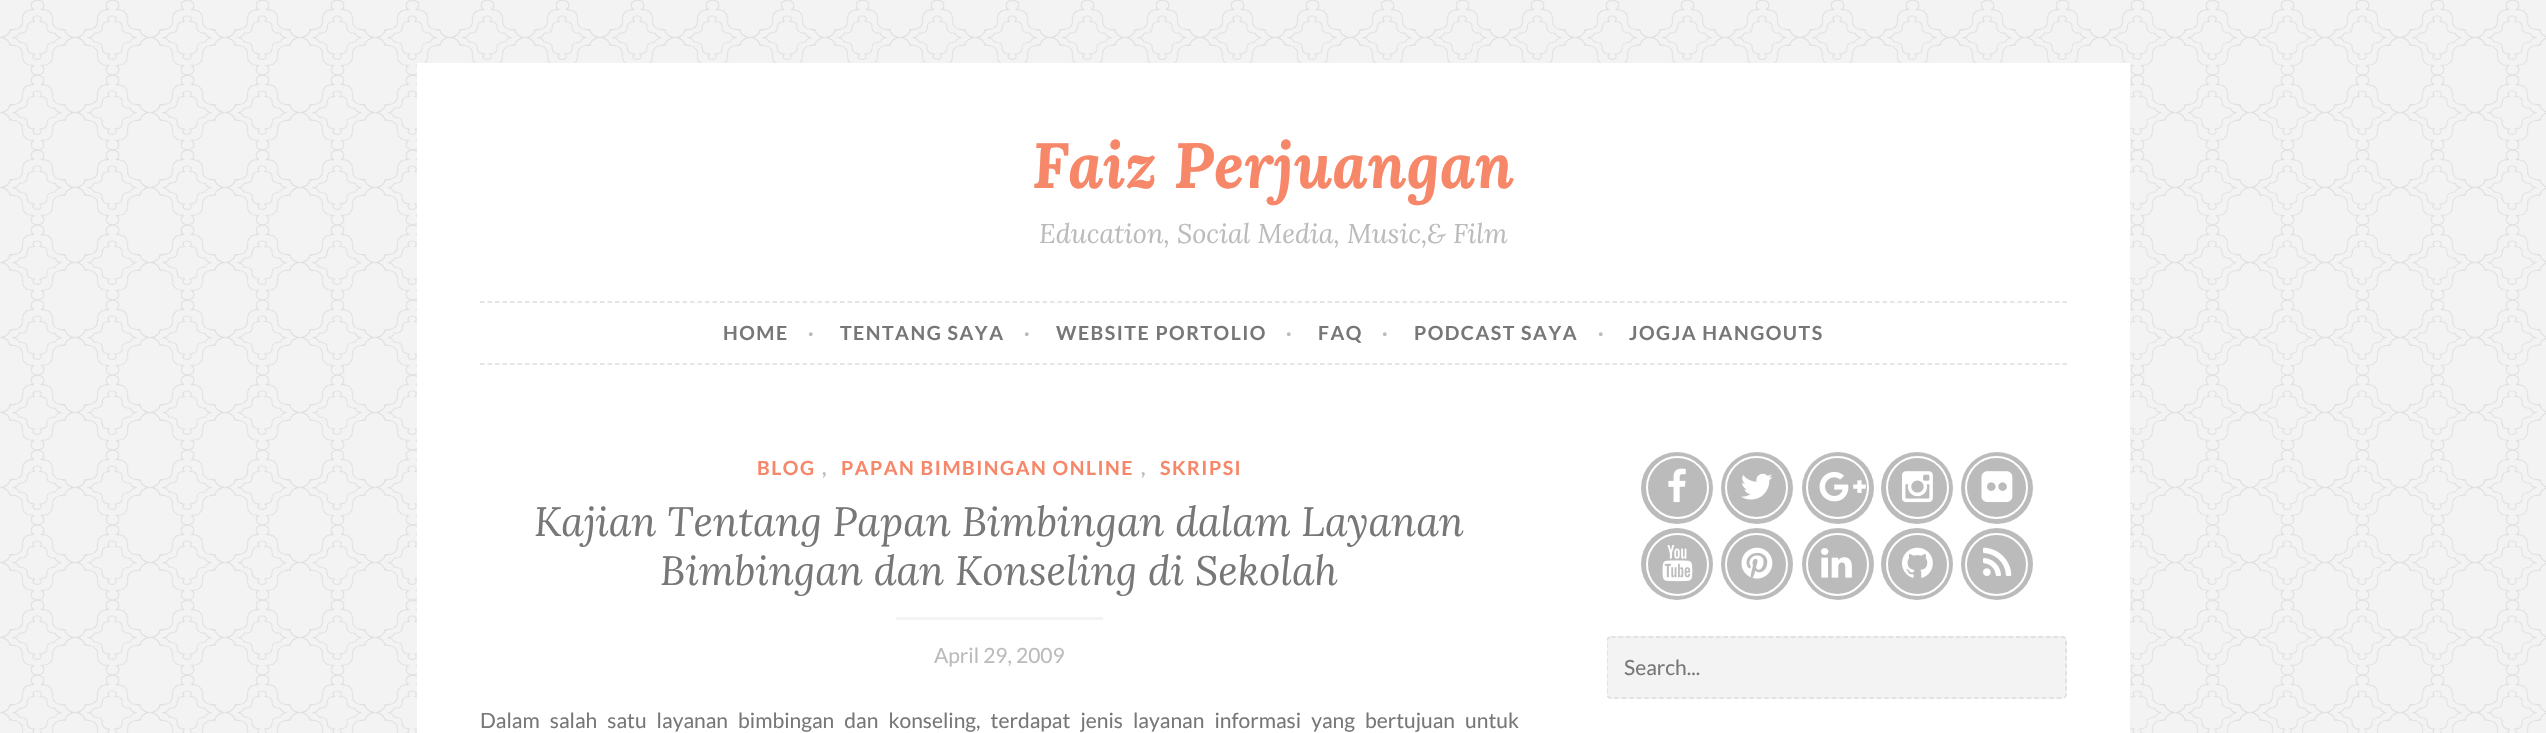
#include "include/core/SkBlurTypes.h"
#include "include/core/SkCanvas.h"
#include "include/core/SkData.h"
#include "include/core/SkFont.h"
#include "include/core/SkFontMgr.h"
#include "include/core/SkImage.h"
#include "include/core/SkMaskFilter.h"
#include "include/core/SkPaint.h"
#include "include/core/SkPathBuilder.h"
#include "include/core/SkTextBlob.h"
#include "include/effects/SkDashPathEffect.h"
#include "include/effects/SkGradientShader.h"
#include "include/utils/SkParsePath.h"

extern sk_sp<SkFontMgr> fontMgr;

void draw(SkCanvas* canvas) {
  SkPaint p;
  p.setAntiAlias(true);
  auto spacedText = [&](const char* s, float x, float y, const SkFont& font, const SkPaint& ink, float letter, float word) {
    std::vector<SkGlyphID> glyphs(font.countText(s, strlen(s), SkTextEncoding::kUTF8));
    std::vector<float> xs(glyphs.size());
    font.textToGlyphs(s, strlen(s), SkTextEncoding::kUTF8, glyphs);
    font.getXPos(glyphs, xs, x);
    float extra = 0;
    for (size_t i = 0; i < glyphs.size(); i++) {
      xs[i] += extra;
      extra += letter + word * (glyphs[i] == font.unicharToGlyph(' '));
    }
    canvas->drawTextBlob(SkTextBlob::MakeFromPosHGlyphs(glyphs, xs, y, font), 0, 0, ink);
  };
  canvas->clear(SkColorSetRGB(243, 243, 243));
  canvas->drawImageRect(SkImages::DeferredFromEncodedData(SkData::MakeFromFileName("images/1.png")), SkRect::MakeLTRB(0, 0, 2546, 733), SkSamplingOptions());
  p.setColor(SK_ColorWHITE);
  canvas->drawRect(SkRect::MakeLTRB(417, 63, 2130, 733), p);
  p.setStyle(SkPaint::kStroke_Style);
  p.setStrokeWidth(1.5f);
  p.setColor(SkColorSetRGB(221, 221, 221));
  p.setPathEffect(SkDashPathEffect::Make({{4.5f, 3}}, 0));
  canvas->drawPath(SkPathBuilder().moveTo(480, 302).lineTo(2067, 302).detach(), p);
  p.setPathEffect(nullptr);
  p.setPathEffect(SkDashPathEffect::Make({{4.5f, 3}}, 0));
  canvas->drawPath(SkPathBuilder().moveTo(480, 364).lineTo(2067, 364).detach(), p);
  p.setPathEffect(nullptr);
  p.setStyle(SkPaint::kFill_Style);
  p.setColor(SkColorSetRGB(243, 243, 243));
  canvas->drawRect(SkRect::MakeLTRB(896, 617, 1103, 620), p);
  p.setColor(SkColorSetRGB(187, 187, 187));
  canvas->drawCircle(1677, 488, 36, p);
  canvas->drawImageRect(SkImages::DeferredFromEncodedData(SkData::MakeFromFileName("images/2.png")), SkRect::MakeLTRB(1668, 468, 1686, 503), SkSamplingOptions());
  p.setStyle(SkPaint::kStroke_Style);
  p.setStrokeWidth(2);
  p.setColor(SK_ColorWHITE);
  canvas->drawCircle(1677.5f, 487.5f, 30.5f, p);
  p.setStyle(SkPaint::kFill_Style);
  p.setColor(SkColorSetRGB(187, 187, 187));
  canvas->drawCircle(1757, 488, 36, p);
  canvas->drawImageRect(SkImages::DeferredFromEncodedData(SkData::MakeFromFileName("images/3.png")), SkRect::MakeLTRB(1741, 473, 1773, 500), SkSamplingOptions());
  p.setStyle(SkPaint::kStroke_Style);
  p.setColor(SK_ColorWHITE);
  canvas->drawCircle(1756.5f, 487.5f, 30.5f, p);
  p.setStyle(SkPaint::kFill_Style);
  p.setColor(SkColorSetRGB(187, 187, 187));
  canvas->drawCircle(1838, 488, 36, p);
  canvas->drawImageRect(SkImages::DeferredFromEncodedData(SkData::MakeFromFileName("images/4.png")), SkRect::MakeLTRB(1819, 472, 1866, 502), SkSamplingOptions());
  p.setStyle(SkPaint::kStroke_Style);
  p.setColor(SK_ColorWHITE);
  canvas->drawCircle(1837.5f, 487.5f, 30.5f, p);
  p.setStyle(SkPaint::kFill_Style);
  p.setColor(SkColorSetRGB(187, 187, 187));
  canvas->drawCircle(1917, 488, 36, p);
  canvas->drawImageRect(SkImages::DeferredFromEncodedData(SkData::MakeFromFileName("images/5.png")), SkRect::MakeLTRB(1902, 471, 1933, 503), SkSamplingOptions());
  p.setStyle(SkPaint::kStroke_Style);
  p.setColor(SK_ColorWHITE);
  canvas->drawCircle(1917.5f, 487.5f, 30.5f, p);
  p.setStyle(SkPaint::kFill_Style);
  p.setColor(SkColorSetRGB(187, 187, 187));
  canvas->drawCircle(1997, 488, 36, p);
  canvas->drawImageRect(SkImages::DeferredFromEncodedData(SkData::MakeFromFileName("images/6.png")), SkRect::MakeLTRB(1981, 471, 2013, 503), SkSamplingOptions());
  p.setStyle(SkPaint::kStroke_Style);
  p.setColor(SK_ColorWHITE);
  canvas->drawCircle(1996.5f, 487.5f, 30.5f, p);
  p.setStyle(SkPaint::kFill_Style);
  p.setColor(SkColorSetRGB(187, 187, 187));
  canvas->drawCircle(1677, 564, 36, p);
  canvas->drawImageRect(SkImages::DeferredFromEncodedData(SkData::MakeFromFileName("images/7.png")), SkRect::MakeLTRB(1662, 545, 1693, 582), SkSamplingOptions());
  p.setStyle(SkPaint::kStroke_Style);
  p.setColor(SK_ColorWHITE);
  canvas->drawCircle(1677.5f, 564.5f, 30.5f, p);
  p.setStyle(SkPaint::kFill_Style);
  p.setColor(SkColorSetRGB(187, 187, 187));
  canvas->drawCircle(1757, 564, 36, p);
  canvas->drawImageRect(SkImages::DeferredFromEncodedData(SkData::MakeFromFileName("images/8.png")), SkRect::MakeLTRB(1741, 547, 1773, 579), SkSamplingOptions());
  p.setStyle(SkPaint::kStroke_Style);
  p.setColor(SK_ColorWHITE);
  canvas->drawCircle(1756.5f, 564.5f, 30.5f, p);
  p.setStyle(SkPaint::kFill_Style);
  p.setColor(SkColorSetRGB(187, 187, 187));
  canvas->drawCircle(1838, 564, 36, p);
  canvas->drawImageRect(SkImages::DeferredFromEncodedData(SkData::MakeFromFileName("images/9.png")), SkRect::MakeLTRB(1821, 548, 1852, 578), SkSamplingOptions());
  p.setStyle(SkPaint::kStroke_Style);
  p.setColor(SK_ColorWHITE);
  canvas->drawCircle(1837.5f, 564.5f, 30.5f, p);
  p.setStyle(SkPaint::kFill_Style);
  p.setColor(SkColorSetRGB(187, 187, 187));
  canvas->drawCircle(1917, 564, 36, p);
  canvas->drawImageRect(SkImages::DeferredFromEncodedData(SkData::MakeFromFileName("images/10.png")), SkRect::MakeLTRB(1902, 547, 1933, 578), SkSamplingOptions());
  p.setStyle(SkPaint::kStroke_Style);
  p.setColor(SK_ColorWHITE);
  canvas->drawCircle(1917.5f, 564.5f, 30.5f, p);
  p.setStyle(SkPaint::kFill_Style);
  p.setColor(SkColorSetRGB(187, 187, 187));
  canvas->drawCircle(1997, 564, 36, p);
  canvas->drawImageRect(SkImages::DeferredFromEncodedData(SkData::MakeFromFileName("images/11.png")), SkRect::MakeLTRB(1983, 547, 2012, 576), SkSamplingOptions());
  p.setStyle(SkPaint::kStroke_Style);
  p.setColor(SK_ColorWHITE);
  canvas->drawCircle(1996.5f, 564.5f, 30.5f, p);
  p.setStyle(SkPaint::kFill_Style);
  p.setColor(SkColorSetRGB(243, 243, 243));
  canvas->drawRoundRect(SkRect::MakeLTRB(1607, 636, 2067, 699), 5, 5, p);
  canvas->save();
  canvas->clipRect(SkRect::MakeLTRB(1607, 452, 2067, 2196));
  p.setStyle(SkPaint::kStroke_Style);
  p.setStrokeWidth(1.5f);
  p.setColor(SkColorSetRGB(221, 221, 221));
  p.setPathEffect(SkDashPathEffect::Make({{4.5f, 3}}, 0));
  canvas->drawPath(SkPathBuilder().moveTo(1611, 637).lineTo(2062.5f, 637).cubicTo(2064.5f, 637, 2066, 638.5f, 2066, 640.5f).lineTo(2066, 694.5f).cubicTo(2066, 696.5f, 2064.5f, 698, 2062.5f, 698).lineTo(1611, 698).cubicTo(1609, 698, 1607, 696.5f, 1607, 694.5f).lineTo(1607, 640.5f).cubicTo(1607, 638.5f, 1609, 637, 1611, 637).close().detach(), p);
  p.setPathEffect(nullptr);
  canvas->restore();
  SkFont font1(fontMgr->matchFamilyStyle("Lora", SkFontStyle::BoldItalic()), 64);
  font1.setSubpixel(true);
  p.setStyle(SkPaint::kFill_Style);
  p.setColor(SkColorSetRGB(247, 135, 105));
  canvas->drawString("Faiz Perjuangan", 1032, 188, font1, p);
  SkFont font2(fontMgr->matchFamilyStyle("Lora", SkFontStyle::Italic()), 27);
  font2.setSubpixel(true);
  p.setColor(SkColorSetRGB(187, 187, 187));
  canvas->drawString("Education, Social Media, Music,& Film", 1039, 243, font2, p);
  SkFont font3(fontMgr->matchFamilyStyle("Lato", SkFontStyle::Bold()), 19.5f);
  font3.setSubpixel(true);
  p.setColor(SkColorSetRGB(119, 119, 119));
  spacedText("HOME", 723, 340, font3, p, 1.5f, 0);
  p.setColor(SkColorSetRGB(187, 187, 187));
  spacedText("·", 808, 340, font3, p, 1.5f, 0);
  p.setColor(SkColorSetRGB(119, 119, 119));
  spacedText("TENTANG SAYA", 840, 340, font3, p, 1.5f, 0);
  p.setColor(SkColorSetRGB(187, 187, 187));
  spacedText("·", 1024, 340, font3, p, 1.5f, 0);
  p.setColor(SkColorSetRGB(119, 119, 119));
  spacedText("WEBSITE PORTOLIO", 1056, 340, font3, p, 1.5f, 0);
  p.setColor(SkColorSetRGB(187, 187, 187));
  spacedText("·", 1286, 340, font3, p, 1.5f, 0);
  p.setColor(SkColorSetRGB(119, 119, 119));
  spacedText("FAQ", 1318, 340, font3, p, 1.5f, 0);
  p.setColor(SkColorSetRGB(187, 187, 187));
  spacedText("·", 1382, 340, font3, p, 1.5f, 0);
  p.setColor(SkColorSetRGB(119, 119, 119));
  spacedText("PODCAST SAYA", 1414, 340, font3, p, 1.5f, 0);
  p.setColor(SkColorSetRGB(187, 187, 187));
  spacedText("·", 1598, 340, font3, p, 1.5f, 0);
  p.setColor(SkColorSetRGB(119, 119, 119));
  spacedText("JOGJA HANGOUTS", 1629, 340, font3, p, 1.5f, 0);
  p.setColor(SkColorSetRGB(247, 135, 105));
  spacedText("BLOG", 757, 475, font3, p, 1.5f, 0);
  p.setColor(SkColorSetRGB(187, 187, 187));
  spacedText(",", 822, 475, font3, p, 1.5f, 0);
  p.setColor(SkColorSetRGB(247, 135, 105));
  spacedText("PAPAN BIMBINGAN ONLINE", 841, 475, font3, p, 1.5f, 0);
  p.setColor(SkColorSetRGB(187, 187, 187));
  spacedText(",", 1141, 475, font3, p, 1.5f, 0);
  p.setColor(SkColorSetRGB(247, 135, 105));
  spacedText("SKRIPSI", 1160, 475, font3, p, 1.5f, 0);
  SkFont font4(fontMgr->matchFamilyStyle("Lora", SkFontStyle::Italic()), 41);
  font4.setSubpixel(true);
  p.setColor(SkColorSetRGB(119, 119, 119));
  canvas->drawString("Kajian Tentang Papan Bimbingan dalam Layanan", 534, 536, font4, p);
  canvas->drawString("Bimbingan dan Konseling di Sekolah", 660, 585, font4, p);
  SkFont font5(fontMgr->matchFamilyStyle("Lato", SkFontStyle::Normal()), 21);
  font5.setSubpixel(true);
  p.setColor(SkColorSetRGB(187, 187, 187));
  canvas->drawString("April 29, 2009", 934, 663, font5, p);
  p.setColor(SkColorSetRGB(119, 119, 119));
  spacedText("Dalam salah satu layanan bimbingan dan konseling, terdapat jenis layanan informasi yang bertujuan untuk", 480, 728, font5, p, 0, 6);
  canvas->drawString("Search...", 1624, 675, font5, p);
}
